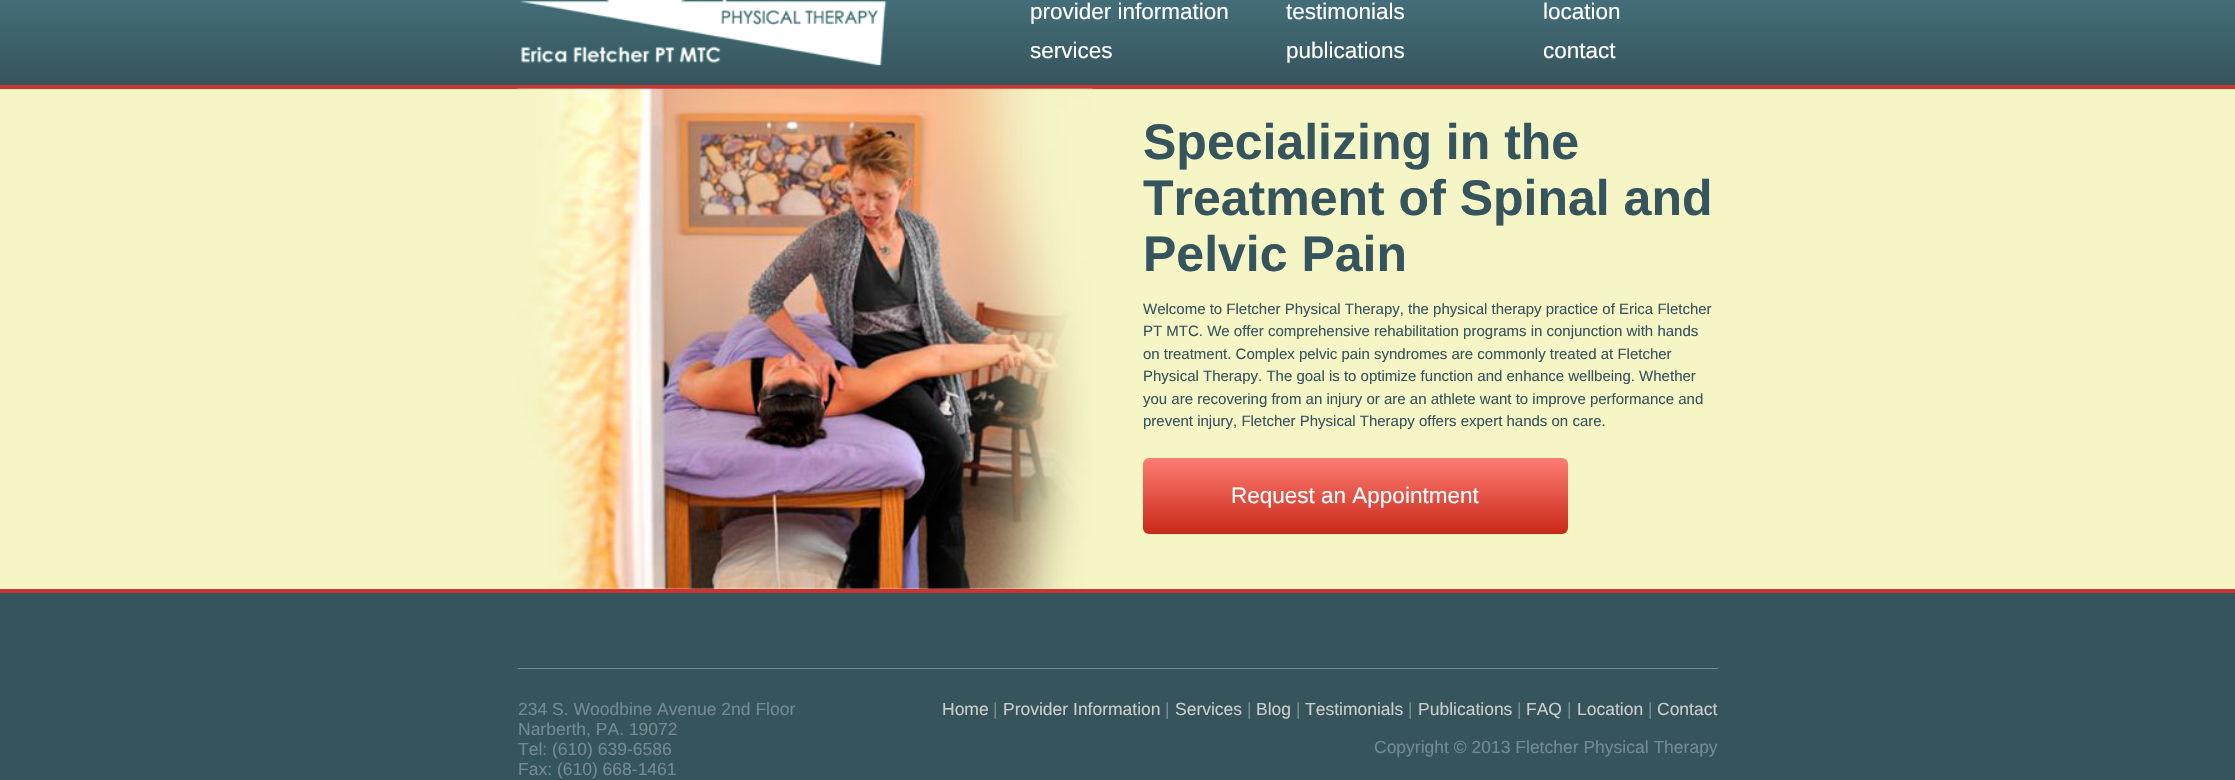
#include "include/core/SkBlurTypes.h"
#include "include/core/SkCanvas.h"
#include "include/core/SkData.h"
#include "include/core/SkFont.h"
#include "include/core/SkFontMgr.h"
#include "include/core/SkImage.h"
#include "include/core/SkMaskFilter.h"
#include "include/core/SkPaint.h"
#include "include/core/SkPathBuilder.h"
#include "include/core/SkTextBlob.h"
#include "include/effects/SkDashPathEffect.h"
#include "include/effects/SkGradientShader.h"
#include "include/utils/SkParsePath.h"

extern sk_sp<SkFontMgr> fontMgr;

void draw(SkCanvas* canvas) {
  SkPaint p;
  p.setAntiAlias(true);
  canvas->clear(SkColorSetRGB(54, 84, 92));
  {
    const SkColor colors[] = {SkColorSetRGB(77, 130, 143), SkColorSetRGB(54, 84, 92)};
    const float stops[] = {0, 1};
    const SkPoint ends[] = {{1118, -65}, {1118, 85}};
    p.setShader(SkGradientShader::MakeLinear(ends, colors, stops, 2, SkTileMode::kClamp));
    p.setAlpha(255);
  }
  canvas->drawRect(SkRect::MakeLTRB(0, 0, 2235, 78), p);
  canvas->drawImageRect(SkImages::DeferredFromEncodedData(SkData::MakeFromFileName("images/1.png")), SkRect::MakeLTRB(520, 0, 887, 66), SkSamplingOptions());
  p.setShader(nullptr);
  p.setColor(SkColorSetRGB(245, 245, 198));
  canvas->drawRect(SkRect::MakeLTRB(0, 89, 2235, 589), p);
  p.setColor(SkColorSetRGB(204, 51, 51));
  canvas->drawRect(SkRect::MakeLTRB(0, 85, 2235, 89), p);
  canvas->drawRect(SkRect::MakeLTRB(0, 589, 2235, 593), p);
  canvas->drawImageRect(SkImages::DeferredFromEncodedData(SkData::MakeFromFileName("images/2.png")), SkRect::MakeLTRB(517, 88, 1093, 589), SkSamplingOptions());
  {
    const SkColor colors[] = {SkColorSetRGB(255, 125, 116), SkColorSetRGB(200, 40, 23)};
    const float stops[] = {0, 1};
    const SkPoint ends[] = {{1355, 458}, {1355, 534}};
    p.setShader(SkGradientShader::MakeLinear(ends, colors, stops, 2, SkTileMode::kClamp));
    p.setAlpha(255);
  }
  canvas->drawRoundRect(SkRect::MakeLTRB(1143, 458, 1568, 534), 6, 6, p);
  p.setShader(nullptr);
  p.setColor(SkColorSetRGB(116, 139, 144));
  canvas->drawRect(SkRect::MakeLTRB(518, 668, 1718, 669), p);
  SkFont font1(fontMgr->matchFamilyStyle("Liberation Sans", SkFontStyle::Normal()), 22.5f);
  font1.setSubpixel(true);
  p.setColor(SK_ColorWHITE);
  canvas->drawString("provider information", 1030, 19, font1, p);
  canvas->drawString("services", 1030, 58, font1, p);
  canvas->drawString("testimonials", 1286, 19, font1, p);
  canvas->drawString("publications", 1286, 58, font1, p);
  canvas->drawString("location", 1543, 19, font1, p);
  canvas->drawString("contact", 1543, 58, font1, p);
  SkFont font2(fontMgr->matchFamilyStyle("Liberation Sans", SkFontStyle::Bold()), 50);
  font2.setSubpixel(true);
  p.setColor(SkColorSetRGB(54, 84, 93));
  canvas->drawString("Specializing in the", 1143, 159, font2, p);
  canvas->drawString("Treatment of Spinal and", 1143, 215, font2, p);
  canvas->drawString("Pelvic Pain", 1143, 271, font2, p);
  SkFont font3(fontMgr->matchFamilyStyle("Liberation Sans", SkFontStyle::Normal()), 15);
  font3.setSubpixel(true);
  canvas->drawString("Welcome to Fletcher Physical Therapy, the physical therapy practice of Erica Fletcher", 1143, 314, font3, p);
  canvas->drawString("PT MTC. We offer comprehensive rehabilitation programs in conjunction with hands", 1143, 336, font3, p);
  canvas->drawString("on treatment. Complex pelvic pain syndromes are commonly treated at Fletcher", 1143, 359, font3, p);
  canvas->drawString("Physical Therapy. The goal is to optimize function and enhance wellbeing. Whether", 1143, 381, font3, p);
  canvas->drawString("you are recovering from an injury or are an athlete want to improve performance and", 1143, 404, font3, p);
  canvas->drawString("prevent injury, Fletcher Physical Therapy offers expert hands on care.", 1143, 426, font3, p);
  p.setColor(SK_ColorWHITE);
  canvas->drawString("Request an Appointment", 1231, 503, font1, p);
  SkFont font4(fontMgr->matchFamilyStyle("Liberation Sans", SkFontStyle::Normal()), 17.5f);
  font4.setSubpixel(true);
  p.setColor(SkColorSetRGB(116, 139, 144));
  canvas->drawString("234 S. Woodbine Avenue 2nd Floor", 518, 715, font4, p);
  canvas->drawString("Narberth, PA. 19072", 518, 735, font4, p);
  canvas->drawString("Tel: (610) 639-6586", 518, 755, font4, p);
  canvas->drawString("Fax: (610) 668-1461", 518, 775, font4, p);
  p.setColor(SkColorSetRGB(204, 204, 204));
  canvas->drawString("Home", 942, 715, font4, p);
  p.setColor(SkColorSetRGB(116, 139, 144));
  canvas->drawString("|", 993, 715, font4, p);
  p.setColor(SkColorSetRGB(204, 204, 204));
  canvas->drawString("Provider Information", 1003, 715, font4, p);
  p.setColor(SkColorSetRGB(116, 139, 144));
  canvas->drawString("|", 1165, 715, font4, p);
  p.setColor(SkColorSetRGB(204, 204, 204));
  canvas->drawString("Services", 1175, 715, font4, p);
  p.setColor(SkColorSetRGB(116, 139, 144));
  canvas->drawString("|", 1247, 715, font4, p);
  p.setColor(SkColorSetRGB(204, 204, 204));
  canvas->drawString("Blog", 1256, 715, font4, p);
  p.setColor(SkColorSetRGB(116, 139, 144));
  canvas->drawString("|", 1296, 715, font4, p);
  p.setColor(SkColorSetRGB(204, 204, 204));
  canvas->drawString("Testimonials", 1305, 715, font4, p);
  p.setColor(SkColorSetRGB(116, 139, 144));
  canvas->drawString("|", 1408, 715, font4, p);
  p.setColor(SkColorSetRGB(204, 204, 204));
  canvas->drawString("Publications", 1418, 715, font4, p);
  p.setColor(SkColorSetRGB(116, 139, 144));
  canvas->drawString("|", 1517, 715, font4, p);
  p.setColor(SkColorSetRGB(204, 204, 204));
  canvas->drawString("FAQ", 1526, 715, font4, p);
  p.setColor(SkColorSetRGB(116, 139, 144));
  canvas->drawString("|", 1567, 715, font4, p);
  p.setColor(SkColorSetRGB(204, 204, 204));
  canvas->drawString("Location", 1577, 715, font4, p);
  p.setColor(SkColorSetRGB(116, 139, 144));
  canvas->drawString("|", 1648, 715, font4, p);
  p.setColor(SkColorSetRGB(204, 204, 204));
  canvas->drawString("Contact", 1657, 715, font4, p);
  p.setColor(SkColorSetRGB(116, 139, 144));
  canvas->drawString("Copyright © 2013 Fletcher Physical Therapy", 1374, 753, font4, p);
}
